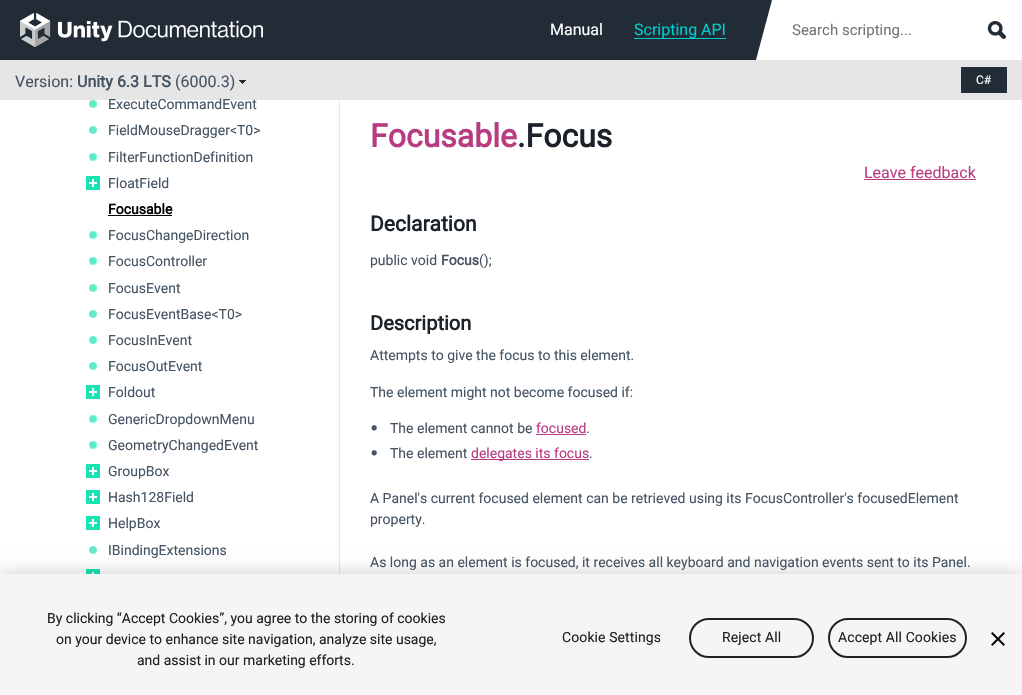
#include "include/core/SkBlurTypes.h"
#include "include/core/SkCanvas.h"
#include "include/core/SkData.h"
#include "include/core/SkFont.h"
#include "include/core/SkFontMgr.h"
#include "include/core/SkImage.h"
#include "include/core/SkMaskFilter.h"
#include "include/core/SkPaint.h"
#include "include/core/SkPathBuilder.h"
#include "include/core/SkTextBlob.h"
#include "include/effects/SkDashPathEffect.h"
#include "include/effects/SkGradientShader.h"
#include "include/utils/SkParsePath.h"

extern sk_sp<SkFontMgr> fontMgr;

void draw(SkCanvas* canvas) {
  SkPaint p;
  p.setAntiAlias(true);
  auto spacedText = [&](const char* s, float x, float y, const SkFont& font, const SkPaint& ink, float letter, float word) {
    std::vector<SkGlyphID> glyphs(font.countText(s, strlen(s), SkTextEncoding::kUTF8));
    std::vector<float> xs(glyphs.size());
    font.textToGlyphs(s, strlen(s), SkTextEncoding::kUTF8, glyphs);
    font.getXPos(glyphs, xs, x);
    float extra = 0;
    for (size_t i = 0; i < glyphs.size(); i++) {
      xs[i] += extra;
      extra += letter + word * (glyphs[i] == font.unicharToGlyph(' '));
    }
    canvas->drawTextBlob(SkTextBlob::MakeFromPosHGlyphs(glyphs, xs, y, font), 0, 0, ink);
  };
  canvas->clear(SK_ColorWHITE);
  p.setColor(SkColorSetRGB(34, 44, 55));
  canvas->drawRect(SkRect::MakeLTRB(0, 0, 772, 60), p);
  canvas->drawImageRect(SkImages::DeferredFromEncodedData(SkData::MakeFromFileName("images/1.png")), SkRect::MakeLTRB(20, 13, 263, 47), SkSamplingOptions());
  p.setColor(SkColorSetRGB(0, 204, 204));
  canvas->drawRect(SkRect::MakeLTRB(634, 38, 726, 39), p);
  canvas->drawImageRect(SkImages::DeferredFromEncodedData(SkData::MakeFromFileName("images/2.png")), SkRect::MakeLTRB(756, 0, 772, 60), SkSamplingOptions());
  canvas->drawImageRect(SkImages::DeferredFromEncodedData(SkData::MakeFromFileName("images/3.png")), SkRect::MakeLTRB(987, 21, 1006, 39), SkSamplingOptions());
  p.setColor(SkColorSetRGB(230, 230, 230));
  canvas->drawRect(SkRect::MakeLTRB(0, 60, 1022, 100), p);
  canvas->drawImageRect(SkImages::DeferredFromEncodedData(SkData::MakeFromFileName("images/4.png")), SkRect::MakeLTRB(239, 80, 246, 84), SkSamplingOptions());
  p.setColor(SkColorSetRGB(34, 44, 55));
  canvas->drawRect(SkRect::MakeLTRB(961, 67, 1007, 93), p);
  p.setColor(SkColorSetRGB(230, 230, 230));
  canvas->drawRect(SkRect::MakeLTRB(339, 100, 340, 574), p);
  canvas->drawImageRect(SkImages::DeferredFromEncodedData(SkData::MakeFromFileName("images/5.png")), SkRect::MakeLTRB(89, 100, 97, 108), SkSamplingOptions());
  canvas->drawImageRect(SkImages::DeferredFromEncodedData(SkData::MakeFromFileName("images/5.png")), SkRect::MakeLTRB(89, 126, 97, 134), SkSamplingOptions());
  canvas->drawImageRect(SkImages::DeferredFromEncodedData(SkData::MakeFromFileName("images/5.png")), SkRect::MakeLTRB(89, 153, 97, 161), SkSamplingOptions());
  p.setColor(SkColorSetRGB(25, 227, 177));
  canvas->drawRect(SkRect::MakeLTRB(86, 176, 100, 190), p);
  canvas->drawImageRect(SkImages::DeferredFromEncodedData(SkData::MakeFromFileName("images/6.png")), SkRect::MakeLTRB(89, 179, 97, 187), SkSamplingOptions());
  p.setColor(SK_ColorBLACK);
  canvas->drawRect(SkRect::MakeLTRB(108, 215, 172, 216), p);
  canvas->drawImageRect(SkImages::DeferredFromEncodedData(SkData::MakeFromFileName("images/5.png")), SkRect::MakeLTRB(89, 231, 97, 239), SkSamplingOptions());
  canvas->drawImageRect(SkImages::DeferredFromEncodedData(SkData::MakeFromFileName("images/5.png")), SkRect::MakeLTRB(89, 257, 97, 265), SkSamplingOptions());
  canvas->drawImageRect(SkImages::DeferredFromEncodedData(SkData::MakeFromFileName("images/5.png")), SkRect::MakeLTRB(89, 284, 97, 292), SkSamplingOptions());
  canvas->drawImageRect(SkImages::DeferredFromEncodedData(SkData::MakeFromFileName("images/5.png")), SkRect::MakeLTRB(89, 310, 97, 318), SkSamplingOptions());
  canvas->drawImageRect(SkImages::DeferredFromEncodedData(SkData::MakeFromFileName("images/5.png")), SkRect::MakeLTRB(89, 336, 97, 344), SkSamplingOptions());
  canvas->drawImageRect(SkImages::DeferredFromEncodedData(SkData::MakeFromFileName("images/5.png")), SkRect::MakeLTRB(89, 362, 97, 370), SkSamplingOptions());
  p.setColor(SkColorSetRGB(25, 227, 177));
  canvas->drawRect(SkRect::MakeLTRB(86, 385, 100, 399), p);
  canvas->drawImageRect(SkImages::DeferredFromEncodedData(SkData::MakeFromFileName("images/6.png")), SkRect::MakeLTRB(89, 388, 97, 396), SkSamplingOptions());
  canvas->drawImageRect(SkImages::DeferredFromEncodedData(SkData::MakeFromFileName("images/5.png")), SkRect::MakeLTRB(89, 415, 97, 423), SkSamplingOptions());
  canvas->drawImageRect(SkImages::DeferredFromEncodedData(SkData::MakeFromFileName("images/5.png")), SkRect::MakeLTRB(89, 441, 97, 449), SkSamplingOptions());
  canvas->drawRect(SkRect::MakeLTRB(86, 464, 100, 478), p);
  canvas->drawImageRect(SkImages::DeferredFromEncodedData(SkData::MakeFromFileName("images/6.png")), SkRect::MakeLTRB(89, 467, 97, 475), SkSamplingOptions());
  canvas->drawRect(SkRect::MakeLTRB(86, 490, 100, 504), p);
  canvas->drawImageRect(SkImages::DeferredFromEncodedData(SkData::MakeFromFileName("images/6.png")), SkRect::MakeLTRB(89, 493, 97, 501), SkSamplingOptions());
  canvas->drawRect(SkRect::MakeLTRB(86, 516, 100, 530), p);
  canvas->drawImageRect(SkImages::DeferredFromEncodedData(SkData::MakeFromFileName("images/6.png")), SkRect::MakeLTRB(89, 519, 97, 527), SkSamplingOptions());
  canvas->drawImageRect(SkImages::DeferredFromEncodedData(SkData::MakeFromFileName("images/5.png")), SkRect::MakeLTRB(89, 546, 97, 554), SkSamplingOptions());
  canvas->drawRect(SkRect::MakeLTRB(86, 569, 100, 574), p);
  canvas->drawImageRect(SkImages::DeferredFromEncodedData(SkData::MakeFromFileName("images/7.png")), SkRect::MakeLTRB(92, 572, 94, 574), SkSamplingOptions());
  p.setColor(SkColorSetRGB(184, 60, 130));
  canvas->drawRect(SkRect::MakeLTRB(864, 179, 976, 180), p);
  canvas->drawRect(SkRect::MakeLTRB(536, 434, 586, 435), p);
  canvas->drawRect(SkRect::MakeLTRB(471, 459, 589, 460), p);
  p.setColor(SkColorSetARGB(51, 0, 0, 0));
  p.setMaskFilter(SkMaskFilter::MakeBlur(kNormal_SkBlurStyle, 9));
  canvas->drawRect(SkRect::MakeLTRB(0, 574, 1022, 695), p);
  p.setMaskFilter(nullptr);
  p.setColor(SkColorSetRGB(245, 245, 245));
  canvas->drawRect(SkRect::MakeLTRB(0, 574, 1022, 695), p);
  p.setStyle(SkPaint::kStroke_Style);
  p.setStrokeWidth(2);
  p.setColor(SkColorSetRGB(33, 33, 33));
  canvas->drawRoundRect(SkRect::MakeLTRB(690, 619, 813, 657), 19, 19, p);
  canvas->drawRoundRect(SkRect::MakeLTRB(829, 619, 966, 657), 19, 19, p);
  canvas->drawImageRect(SkImages::DeferredFromEncodedData(SkData::MakeFromFileName("images/8.png")), SkRect::MakeLTRB(991, 632, 1005, 646), SkSamplingOptions());
  SkFont font1(fontMgr->matchFamilyStyle("Roboto", SkFontStyle::Normal()), 16);
  font1.setSubpixel(true);
  p.setStyle(SkPaint::kFill_Style);
  p.setColor(SK_ColorWHITE);
  canvas->drawString("Manual", 550, 35, font1, p);
  p.setColor(SkColorSetRGB(0, 204, 204));
  canvas->drawString("Scripting API", 634, 35, font1, p);
  SkFont font2(fontMgr->matchFamilyStyle("Roboto", SkFontStyle::Normal()), 15);
  font2.setSubpixel(true);
  p.setColor(SkColorSetRGB(117, 117, 117));
  canvas->drawString("Search scripting...", 792, 35, font2, p);
  p.setColor(SkColorSetRGB(69, 84, 99));
  canvas->drawString("Version:", 15, 87, font1, p);
  SkFont font3(fontMgr->matchFamilyStyle("Roboto", SkFontStyle::Bold()), 16);
  font3.setSubpixel(true);
  canvas->drawString("Unity 6.3 LTS", 77, 87, font3, p);
  canvas->drawString("(6000.3)", 175, 87, font1, p);
  SkFont font4(fontMgr->matchFamilyStyle("Roboto", SkFontStyle::Normal()), 12);
  font4.setSubpixel(true);
  p.setColor(SK_ColorWHITE);
  canvas->drawString("C#", 976, 84, font4, p);
  SkFont font5(fontMgr->matchFamilyStyle("Roboto", SkFontStyle::Normal()), 14);
  font5.setSubpixel(true);
  p.setColor(SkColorSetRGB(69, 84, 99));
  canvas->drawString("ExecuteCommandEvent", 108, 109, font5, p);
  canvas->drawString("FieldMouseDragger<T0>", 108, 135, font5, p);
  canvas->drawString("FilterFunctionDefinition", 108, 162, font5, p);
  canvas->drawString("FloatField", 108, 188, font5, p);
  SkFont font6(fontMgr->matchFamilyStyle("Roboto", SkFontStyle::Bold()), 14);
  font6.setSubpixel(true);
  p.setColor(SK_ColorBLACK);
  canvas->drawString("Focusable", 108, 214, font6, p);
  p.setColor(SkColorSetRGB(69, 84, 99));
  canvas->drawString("FocusChangeDirection", 108, 240, font5, p);
  canvas->drawString("FocusController", 108, 266, font5, p);
  canvas->drawString("FocusEvent", 108, 293, font5, p);
  canvas->drawString("FocusEventBase<T0>", 108, 319, font5, p);
  canvas->drawString("FocusInEvent", 108, 345, font5, p);
  canvas->drawString("FocusOutEvent", 108, 371, font5, p);
  canvas->drawString("Foldout", 108, 397, font5, p);
  canvas->drawString("GenericDropdownMenu", 108, 424, font5, p);
  canvas->drawString("GeometryChangedEvent", 108, 450, font5, p);
  canvas->drawString("GroupBox", 108, 476, font5, p);
  canvas->drawString("Hash128Field", 108, 502, font5, p);
  canvas->drawString("HelpBox", 108, 528, font5, p);
  canvas->drawString("IBindingExtensions", 108, 555, font5, p);
  SkFont font7(fontMgr->matchFamilyStyle("Roboto", SkFontStyle::Bold()), 32);
  font7.setSubpixel(true);
  p.setColor(SkColorSetRGB(184, 60, 130));
  canvas->drawString("Focusable", 370, 147, font7, p);
  p.setColor(SkColorSetRGB(27, 34, 41));
  canvas->drawString(".Focus", 517, 147, font7, p);
  p.setColor(SkColorSetRGB(184, 60, 130));
  canvas->drawString("Leave feedback", 864, 178, font1, p);
  SkFont font8(fontMgr->matchFamilyStyle("Roboto", SkFontStyle::Bold()), 21);
  font8.setSubpixel(true);
  p.setColor(SkColorSetRGB(27, 34, 41));
  canvas->drawString("Declaration", 370, 231, font8, p);
  p.setColor(SkColorSetRGB(69, 84, 99));
  canvas->drawString("public void", 370, 265, font5, p);
  canvas->drawString("Focus", 441, 265, font6, p);
  canvas->drawString("();", 479, 265, font5, p);
  SkFont font9(fontMgr->matchFamilyStyle("Roboto", SkFontStyle::Bold()), 20);
  font9.setSubpixel(true);
  p.setColor(SkColorSetRGB(27, 34, 41));
  canvas->drawString("Description", 370, 330, font9, p);
  p.setColor(SkColorSetRGB(69, 84, 99));
  canvas->drawString("Attempts to give the focus to this element.", 370, 360, font5, p);
  canvas->drawString("The element might not become focused if:", 370, 397, font5, p);
  SkFont font10(fontMgr->matchFamilyStyle("Roboto", SkFontStyle::Normal()), 25);
  font10.setSubpixel(true);
  canvas->drawString("•", 370, 437, font10, p);
  canvas->drawString("The element cannot be", 390, 433, font5, p);
  p.setColor(SkColorSetRGB(184, 60, 130));
  canvas->drawString("focused", 536, 433, font5, p);
  p.setColor(SkColorSetRGB(69, 84, 99));
  canvas->drawString(".", 586, 433, font5, p);
  canvas->drawString("•", 370, 462, font10, p);
  canvas->drawString("The element", 390, 458, font5, p);
  p.setColor(SkColorSetRGB(184, 60, 130));
  canvas->drawString("delegates its focus", 471, 458, font5, p);
  p.setColor(SkColorSetRGB(69, 84, 99));
  canvas->drawString(".", 589, 458, font5, p);
  canvas->drawString("A Panel's current focused element can be retrieved using its FocusController's focusedElement", 370, 503, font5, p);
  canvas->drawString("property.", 370, 524, font5, p);
  canvas->drawString("As long as an element is focused, it receives all keyboard and navigation events sent to its Panel.", 370, 567, font5, p);
  p.setColor(SkColorSetRGB(33, 33, 33));
  canvas->drawString("By clicking “Accept Cookies”, you agree to the storing of cookies", 47, 623, font5, p);
  canvas->drawString("on your device to enhance site navigation, analyze site usage,", 56, 644, font5, p);
  canvas->drawString("and assist in our marketing efforts.", 137, 665, font5, p);
  spacedText("Cookie Settings", 562, 642, font5, p, 0.1f, 0);
  spacedText("Reject All", 722, 642, font5, p, 0.1f, 0);
  spacedText("Accept All Cookies", 838, 642, font5, p, 0.1f, 0);
}
